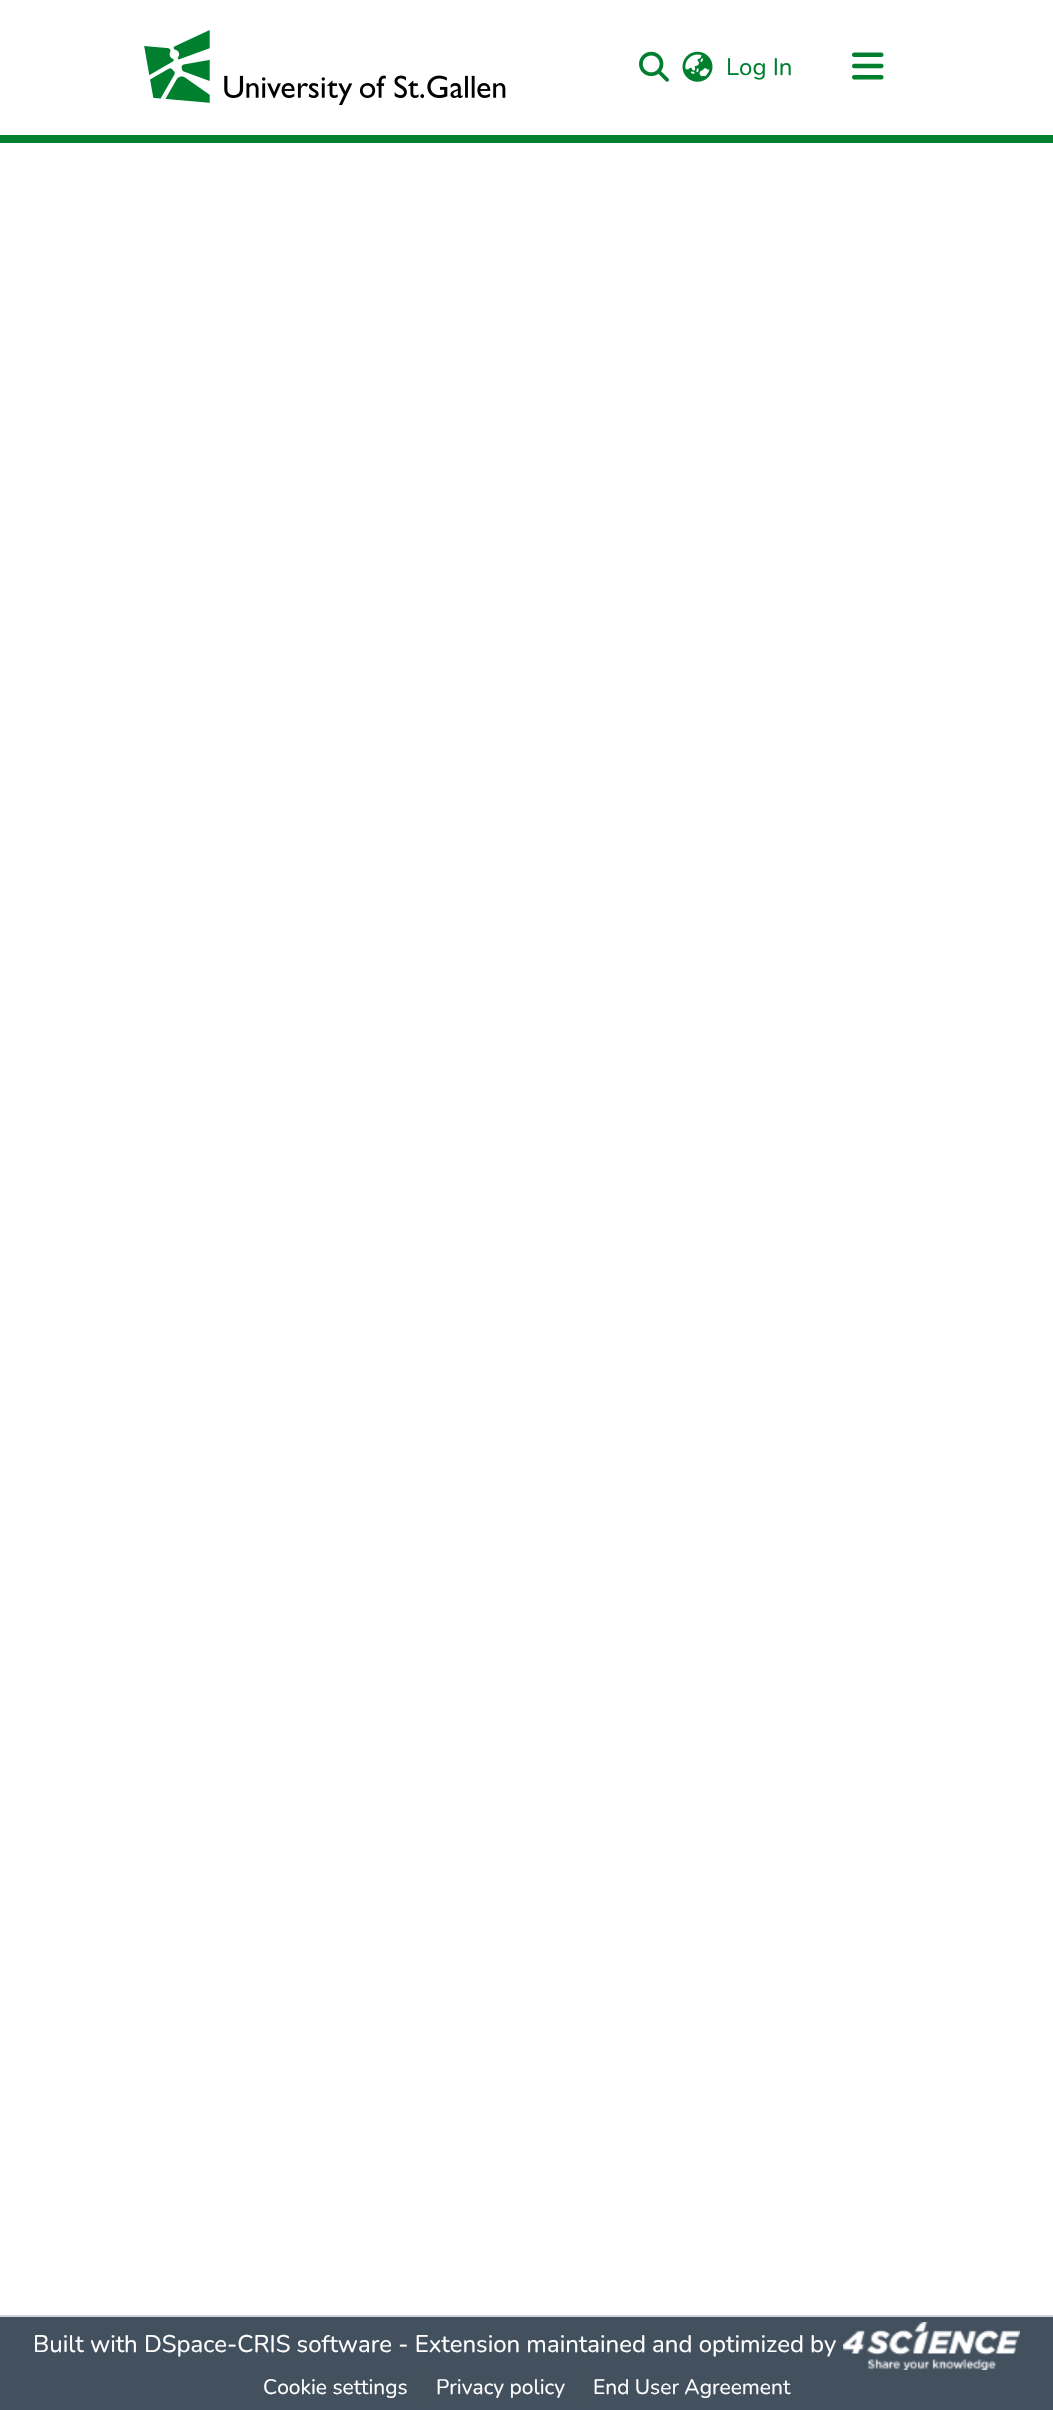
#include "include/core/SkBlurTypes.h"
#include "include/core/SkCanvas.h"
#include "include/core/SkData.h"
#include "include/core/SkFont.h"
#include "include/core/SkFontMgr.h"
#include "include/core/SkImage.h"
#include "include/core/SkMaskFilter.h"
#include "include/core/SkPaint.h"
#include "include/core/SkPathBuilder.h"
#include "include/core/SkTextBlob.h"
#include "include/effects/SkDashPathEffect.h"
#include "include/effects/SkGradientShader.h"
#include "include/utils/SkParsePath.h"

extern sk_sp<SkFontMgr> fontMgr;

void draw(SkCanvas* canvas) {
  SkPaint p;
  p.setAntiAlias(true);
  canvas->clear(SK_ColorWHITE);
  p.setColor(SkColorSetRGB(0, 128, 47));
  canvas->drawRect(SkRect::MakeLTRB(0, 135, 1053, 143), p);
  canvas->drawImageRect(SkImages::DeferredFromEncodedData(SkData::MakeFromFileName("images/1.png")), SkRect::MakeLTRB(144, 30, 506, 105), SkSamplingOptions());
  canvas->drawImageRect(SkImages::DeferredFromEncodedData(SkData::MakeFromFileName("images/2.png")), SkRect::MakeLTRB(639, 51, 669, 82), SkSamplingOptions());
  canvas->drawImageRect(SkImages::DeferredFromEncodedData(SkData::MakeFromFileName("images/3.png")), SkRect::MakeLTRB(682, 51, 713, 82), SkSamplingOptions());
  canvas->drawImageRect(SkImages::DeferredFromEncodedData(SkData::MakeFromFileName("images/4.png")), SkRect::MakeLTRB(852, 52, 884, 80), SkSamplingOptions());
  p.setColor(SkColorSetRGB(67, 81, 95));
  canvas->drawRect(SkRect::MakeLTRB(0, 2317, 1053, 2410), p);
  p.setColor(SkColorSetRGB(206, 212, 218));
  canvas->drawRect(SkRect::MakeLTRB(0, 2315, 1053, 2317), p);
  canvas->drawImageRect(SkImages::DeferredFromEncodedData(SkData::MakeFromFileName("images/5.png")), SkRect::MakeLTRB(843, 2322, 1020, 2370), SkSamplingOptions());
  p.setColor(SkColorSetRGB(73, 80, 87));
  canvas->drawRect(SkRect::MakeLTRB(420, 2370, 422, 2405), p);
  canvas->drawRect(SkRect::MakeLTRB(578, 2370, 580, 2405), p);
  SkFont font1(fontMgr->matchFamilyStyle("Nunito", SkFontStyle::Normal()), 24);
  font1.setSubpixel(true);
  p.setColor(SkColorSetRGB(0, 128, 47));
  canvas->drawString("Log In", 726, 75, font1, p);
  p.setColor(SK_ColorWHITE);
  canvas->drawString("Built with DSpace-CRIS software - Extension maintained and optimized by", 33, 2352, font1, p);
  SkFont font2(fontMgr->matchFamilyStyle("Nunito", SkFontStyle::Normal()), 21);
  font2.setSubpixel(true);
  canvas->drawString("Cookie settings", 263, 2394, font2, p);
  canvas->drawString("Privacy policy", 436, 2394, font2, p);
  canvas->drawString("End User Agreement", 593, 2394, font2, p);
}
